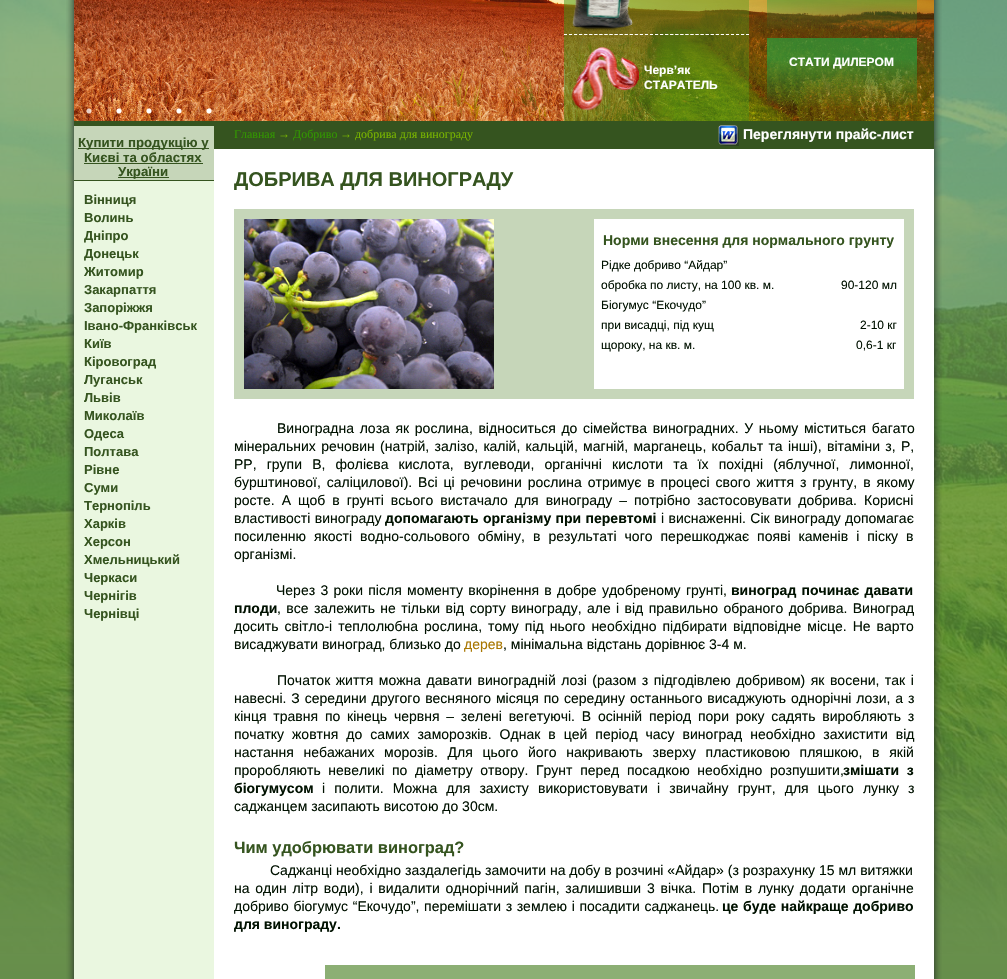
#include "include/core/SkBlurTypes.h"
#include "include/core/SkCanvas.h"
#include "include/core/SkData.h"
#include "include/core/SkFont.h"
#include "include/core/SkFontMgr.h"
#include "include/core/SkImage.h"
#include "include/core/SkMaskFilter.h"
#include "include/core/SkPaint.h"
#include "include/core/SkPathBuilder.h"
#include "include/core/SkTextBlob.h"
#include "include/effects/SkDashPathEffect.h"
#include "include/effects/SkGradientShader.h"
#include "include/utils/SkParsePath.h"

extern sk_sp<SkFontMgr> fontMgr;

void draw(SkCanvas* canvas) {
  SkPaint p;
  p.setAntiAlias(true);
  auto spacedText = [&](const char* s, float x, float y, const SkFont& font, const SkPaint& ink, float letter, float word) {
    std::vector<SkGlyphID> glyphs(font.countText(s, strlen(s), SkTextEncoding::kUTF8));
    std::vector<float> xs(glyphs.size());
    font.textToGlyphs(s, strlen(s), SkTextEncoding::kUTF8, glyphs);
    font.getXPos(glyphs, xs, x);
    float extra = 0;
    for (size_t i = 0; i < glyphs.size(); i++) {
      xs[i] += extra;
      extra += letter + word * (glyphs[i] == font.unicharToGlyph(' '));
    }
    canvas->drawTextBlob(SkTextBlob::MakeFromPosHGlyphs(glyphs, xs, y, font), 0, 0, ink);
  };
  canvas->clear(SK_ColorWHITE);
  {
    const SkColor colors[] = {SkColorSetRGB(124, 164, 95), SkColorSetRGB(56, 107, 20)};
    const float stops[] = {0.25f, 1};
    const SkPoint ends[] = {{0, -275}, {0, 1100}};
    p.setShader(SkGradientShader::MakeLinear(ends, colors, stops, 2, SkTileMode::kClamp));
    p.setAlpha(255);
  }
  canvas->drawRect(SkRect::MakeLTRB(0, 0, 1007, 979), p);
  canvas->drawImageRect(SkImages::DeferredFromEncodedData(SkData::MakeFromFileName("images/1.png")), SkRect::MakeLTRB(0, 0, 1007, 979), SkSamplingOptions());
  canvas->drawImageRect(SkImages::DeferredFromEncodedData(SkData::MakeFromFileName("images/2.png")), SkRect::MakeLTRB(66, 0, 942, 979), SkSamplingOptions());
  p.setShader(nullptr);
  p.setColor(SK_ColorWHITE);
  canvas->drawRect(SkRect::MakeLTRB(214, 149, 934, 979), p);
  p.setColor(SkColorSetRGB(53, 84, 31));
  canvas->drawRect(SkRect::MakeLTRB(74, 121, 934, 125), p);
  canvas->drawImageRect(SkImages::DeferredFromEncodedData(SkData::MakeFromFileName("images/3.png")), SkRect::MakeLTRB(74, 0, 934, 121), SkSamplingOptions());
  canvas->drawImageRect(SkImages::DeferredFromEncodedData(SkData::MakeFromFileName("images/4.png")), SkRect::MakeLTRB(86, 108, 92, 114), SkSamplingOptions());
  canvas->drawImageRect(SkImages::DeferredFromEncodedData(SkData::MakeFromFileName("images/5.png")), SkRect::MakeLTRB(116, 108, 122, 114), SkSamplingOptions());
  canvas->drawImageRect(SkImages::DeferredFromEncodedData(SkData::MakeFromFileName("images/6.png")), SkRect::MakeLTRB(146, 108, 152, 114), SkSamplingOptions());
  canvas->drawImageRect(SkImages::DeferredFromEncodedData(SkData::MakeFromFileName("images/7.png")), SkRect::MakeLTRB(176, 108, 182, 114), SkSamplingOptions());
  canvas->drawImageRect(SkImages::DeferredFromEncodedData(SkData::MakeFromFileName("images/8.png")), SkRect::MakeLTRB(206, 108, 212, 114), SkSamplingOptions());
  p.setColor(SkColorSetARGB(77, 70, 150, 20));
  canvas->drawRect(SkRect::MakeLTRB(564, 0, 749, 121), p);
  p.setColor(SkColorSetARGB(26, 50, 150, 0));
  canvas->drawRect(SkRect::MakeLTRB(749, 0, 934, 121), p);
  canvas->drawRect(SkRect::MakeLTRB(749, 0, 934, 121), p);
  {
    const SkColor colors[] = {SkColorSetARGB(179, 41, 157, 59), SkColorSetARGB(0, 41, 157, 59)};
    const float stops[] = {0.29f, 1};
    const SkPoint ends[] = {{842, -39}, {842, 31}};
    p.setShader(SkGradientShader::MakeLinear(ends, colors, stops, 2, SkTileMode::kClamp));
    p.setAlpha(255);
  }
  canvas->drawRect(SkRect::MakeLTRB(767, 0, 917, 29), p);
  {
    const SkColor colors[] = {SkColorSetARGB(179, 41, 157, 59), SkColorSetARGB(0, 41, 157, 59)};
    const float stops[] = {0.29f, 1};
    const SkPoint ends[] = {{842, 38}, {842, 108}};
    p.setShader(SkGradientShader::MakeLinear(ends, colors, stops, 2, SkTileMode::kClamp));
    p.setAlpha(255);
  }
  canvas->drawRect(SkRect::MakeLTRB(767, 38, 917, 106), p);
  p.setShader(nullptr);
  p.setColor(SkColorSetARGB(77, 70, 150, 20));
  canvas->drawRect(SkRect::MakeLTRB(564, 0, 749, 121), p);
  canvas->drawImageRect(SkImages::DeferredFromEncodedData(SkData::MakeFromFileName("images/9.png")), SkRect::MakeLTRB(572, 0, 633, 35), SkSamplingOptions());
  p.setStyle(SkPaint::kStroke_Style);
  p.setStrokeWidth(1);
  p.setColor(SK_ColorWHITE);
  p.setPathEffect(SkDashPathEffect::Make({{3, 2.06f}}, 0));
  canvas->drawPath(SkPathBuilder().moveTo(564, 34.5f).lineTo(749, 34.5f).detach(), p);
  p.setPathEffect(nullptr);
  p.setPathEffect(SkDashPathEffect::Make({{3, 2.06f}}, 0));
  canvas->drawPath(SkPathBuilder().moveTo(564, 34.5f).lineTo(749, 34.5f).detach(), p);
  p.setPathEffect(nullptr);
  canvas->drawImageRect(SkImages::DeferredFromEncodedData(SkData::MakeFromFileName("images/10.png")), SkRect::MakeLTRB(564, 38, 639, 111), SkSamplingOptions());
  p.setStyle(SkPaint::kFill_Style);
  p.setColor(SkColorSetRGB(234, 247, 224));
  canvas->drawRect(SkRect::MakeLTRB(74, 181, 214, 979), p);
  p.setColor(SkColorSetRGB(198, 214, 185));
  canvas->drawRect(SkRect::MakeLTRB(74, 126, 214, 180), p);
  p.setColor(SkColorSetRGB(53, 84, 31));
  canvas->drawRect(SkRect::MakeLTRB(74, 125, 214, 126), p);
  canvas->drawRect(SkRect::MakeLTRB(74, 180, 214, 181), p);
  canvas->drawRect(SkRect::MakeLTRB(78, 148, 209, 149), p);
  canvas->drawRect(SkRect::MakeLTRB(84, 163, 203, 164), p);
  canvas->drawRect(SkRect::MakeLTRB(118, 177, 169, 178), p);
  canvas->drawRect(SkRect::MakeLTRB(214, 125, 934, 149), p);
  canvas->drawImageRect(SkImages::DeferredFromEncodedData(SkData::MakeFromFileName("images/11.png")), SkRect::MakeLTRB(718, 125, 739, 146), SkSamplingOptions());
  p.setColor(SkColorSetRGB(198, 214, 185));
  canvas->drawRect(SkRect::MakeLTRB(234, 209, 914, 399), p);
  canvas->drawImageRect(SkImages::DeferredFromEncodedData(SkData::MakeFromFileName("images/12.png")), SkRect::MakeLTRB(244, 219, 494, 389), SkSamplingOptions());
  p.setColor(SK_ColorWHITE);
  canvas->drawRect(SkRect::MakeLTRB(594, 219, 904, 389), p);
  p.setColor(SkColorSetRGB(140, 175, 116));
  canvas->drawRect(SkRect::MakeLTRB(325, 965, 915, 979), p);
  SkFont font1(fontMgr->matchFamilyStyle("Liberation Sans", SkFontStyle::Bold()), 12);
  font1.setSubpixel(true);
  p.setColor(SK_ColorWHITE);
  canvas->drawString("СТАТИ ДИЛЕРОМ", 789, 66, font1, p);
  canvas->drawString("Черв’як", 644, 74, font1, p);
  canvas->drawString("СТАРАТЕЛЬ", 644, 89, font1, p);
  SkFont font2(fontMgr->matchFamilyStyle("Liberation Sans", SkFontStyle::Bold()), 13.25f);
  font2.setSubpixel(true);
  p.setColor(SkColorSetRGB(53, 84, 31));
  canvas->drawString("Купити продукцію у", 78, 147, font2, p);
  canvas->drawString("Києві та областях", 84, 162, font2, p);
  canvas->drawString("України", 118, 176, font2, p);
  SkFont font3(fontMgr->matchFamilyStyle("Liberation Sans", SkFontStyle::Bold()), 13);
  font3.setSubpixel(true);
  canvas->drawString("Вінниця", 84, 204, font3, p);
  canvas->drawString("Волинь", 84, 222, font3, p);
  canvas->drawString("Дніпро", 84, 240, font3, p);
  canvas->drawString("Донецьк", 84, 258, font3, p);
  canvas->drawString("Житомир", 84, 276, font3, p);
  canvas->drawString("Закарпаття", 84, 294, font3, p);
  canvas->drawString("Запоріжжя", 84, 312, font3, p);
  canvas->drawString("Івано-Франківськ", 84, 330, font3, p);
  canvas->drawString("Київ", 84, 348, font3, p);
  canvas->drawString("Кіровоград", 84, 366, font3, p);
  canvas->drawString("Луганськ", 84, 384, font3, p);
  canvas->drawString("Львів", 84, 402, font3, p);
  canvas->drawString("Миколаїв", 84, 420, font3, p);
  canvas->drawString("Одеса", 84, 438, font3, p);
  canvas->drawString("Полтава", 84, 456, font3, p);
  canvas->drawString("Рівне", 84, 474, font3, p);
  canvas->drawString("Суми", 84, 492, font3, p);
  canvas->drawString("Тернопіль", 84, 510, font3, p);
  canvas->drawString("Харків", 84, 528, font3, p);
  canvas->drawString("Херсон", 84, 546, font3, p);
  canvas->drawString("Хмельницький", 84, 564, font3, p);
  canvas->drawString("Черкаси", 84, 582, font3, p);
  canvas->drawString("Чернігів", 84, 600, font3, p);
  canvas->drawString("Чернівці", 84, 618, font3, p);
  SkFont font4(fontMgr->matchFamilyStyle("Liberation Serif", SkFontStyle::Normal()), 12);
  font4.setSubpixel(true);
  p.setColor(SkColorSetRGB(50, 150, 0));
  canvas->drawString("Главная", 234, 138, font4, p);
  p.setColor(SkColorSetRGB(120, 180, 0));
  canvas->drawString("→", 278, 138, font4, p);
  p.setColor(SkColorSetRGB(50, 150, 0));
  canvas->drawString("Добриво", 293, 138, font4, p);
  p.setColor(SkColorSetRGB(120, 180, 0));
  canvas->drawString("→ добрива для винограду", 340, 138, font4, p);
  SkFont font5(fontMgr->matchFamilyStyle("Liberation Sans", SkFontStyle::Bold()), 14);
  font5.setSubpixel(true);
  p.setColor(SK_ColorWHITE);
  canvas->drawString("Переглянути прайс-лист", 743, 139, font5, p);
  SkFont font6(fontMgr->matchFamilyStyle("Liberation Sans", SkFontStyle::Bold()), 20);
  font6.setSubpixel(true);
  p.setColor(SkColorSetRGB(53, 84, 31));
  canvas->drawString("ДОБРИВА ДЛЯ ВИНОГРАДУ", 234, 186, font6, p);
  canvas->drawString("Норми внесення для нормального грунту", 603, 245, font5, p);
  SkFont font7(fontMgr->matchFamilyStyle("Liberation Sans", SkFontStyle::Normal()), 12);
  font7.setSubpixel(true);
  p.setColor(SkColorSetRGB(0, 17, 0));
  canvas->drawString("Рідке добриво “Айдар”", 601, 269, font7, p);
  canvas->drawString("обробка по листу, на 100 кв. м.", 601, 289, font7, p);
  canvas->drawString("90-120 мл", 841, 289, font7, p);
  canvas->drawString("Біогумус “Екочудо”", 601, 309, font7, p);
  canvas->drawString("при висадці, під кущ", 601, 329, font7, p);
  canvas->drawString("2-10 кг", 860, 329, font7, p);
  canvas->drawString("щороку, на кв. м.", 601, 349, font7, p);
  canvas->drawString("0,6-1 кг", 856, 349, font7, p);
  SkFont font8(fontMgr->matchFamilyStyle("Liberation Sans", SkFontStyle::Normal()), 14);
  font8.setSubpixel(true);
  spacedText("Виноградна лоза як рослина, відноситься до сімейства виноградних. У ньому міститься багато", 277, 433, font8, p, 0, 1.75f);
  spacedText("мінеральних речовин (натрій, залізо, калій, кальцій, магній, марганець, кобальт та інші), вітаміни з, Р,", 234, 451, font8, p, 0, 1.4f);
  spacedText("РР, групи В, фолієва кислота, вуглеводи, органічні кислоти та їх похідні (яблучної, лимонної,", 234, 469, font8, p, 0, 6.25f);
  spacedText("бурштинової, саліцилової). Всі ці речовини рослина отримує в процесі свого життя з грунту, в якому", 234, 487, font8, p, 0, 2);
  spacedText("росте. А щоб в грунті всього вистачало для винограду – потрібно застосовувати добрива. Корисні", 234, 505, font8, p, 0, 3.1f);
  spacedText("властивості винограду", 234, 523, font8, p, 0, 0.5f);
  spacedText("допомагають організму при перевтомі", 385, 523, font5, p, 0, 0.5f);
  spacedText("і виснаженні. Сік винограду допомагає", 661, 523, font8, p, 0, 0.5f);
  spacedText("посиленню якості водно-сольового обміну, в результаті чого перешкоджає появі каменів і піску в", 234, 541, font8, p, 0, 4.1f);
  canvas->drawString("організмі.", 234, 559, font8, p);
  spacedText("Через 3 роки після моменту вкорінення в добре удобреному грунті,", 276, 595, font8, p, 0, 1.4f);
  spacedText("виноград починає давати", 731, 595, font5, p, 0, 1.4f);
  canvas->drawString("плоди", 234, 613, font5, p);
  spacedText(", все залежить не тільки від сорту винограду, але і від правильно обраного добрива. Виноград", 277, 613, font8, p, 0, 1.5f);
  spacedText("досить світло-і теплолюбна рослина, тому під нього необхідно підбирати відповідне місце. Не варто", 234, 631, font8, p, 0, 2.1f);
  canvas->drawString("висаджувати виноград, близько до", 234, 649, font8, p);
  p.setColor(SkColorSetRGB(168, 118, 0));
  canvas->drawString("дерев", 464, 649, font8, p);
  p.setColor(SkColorSetRGB(0, 17, 0));
  canvas->drawString(", мінімальна відстань дорівнює 3-4 м.", 503, 649, font8, p);
  spacedText("Початок життя можна давати виноградній лозі (разом з підгодівлею добривом) як восени, так і", 277, 685, font8, p, 0, 1.6f);
  spacedText("навесні. З середини другого весняного місяця по середину останнього висаджують однорічні лози, а з", 234, 703, font8, p, 0, 1);
  spacedText("кінця травня по кінець червня – зелені вегетуючі. В осінній період пори року садять виробляють з", 234, 721, font8, p, 0, 2.9f);
  spacedText("початку жовтня до самих заморозків. Однак в цей період часу виноград необхідно захистити від", 234, 739, font8, p, 0, 4.1f);
  spacedText("настання небажаних морозів. Для цього його накривають зверху пластиковою пляшкою, в якій", 234, 757, font8, p, 0, 5.75f);
  spacedText("проробляють невеликі по діаметру отвору. Грунт перед посадкою необхідно розпушити,", 234, 775, font8, p, 0, 3.75f);
  spacedText("змішати з", 843, 775, font5, p, 0, 3.75f);
  canvas->drawString("біогумусом", 234, 793, font5, p);
  spacedText("і полити. Можна для захисту використовувати і звичайну грунт, для цього лунку з", 322, 793, font8, p, 0, 5.25f);
  canvas->drawString("саджанцем засипають висотою до 30см.", 234, 811, font8, p);
  SkFont font9(fontMgr->matchFamilyStyle("Liberation Sans", SkFontStyle::Bold()), 16.4f);
  font9.setSubpixel(true);
  p.setColor(SkColorSetRGB(53, 84, 31));
  canvas->drawString("Чим удобрювати виноград?", 234, 853, font9, p);
  p.setColor(SkColorSetRGB(0, 17, 0));
  canvas->drawString("Саджанці необхідно заздалегідь замочити на добу в розчині «Айдар» (з розрахунку 15 мл витяжки", 270, 875, font8, p);
  spacedText("на один літр води), і видалити однорічний пагін, залишивши 3 вічка. Потім в лунку додати органічне", 234, 893, font8, p, 0, 1.9f);
  spacedText("добриво біогумус “Екочудо”, перемішати з землею і посадити саджанець.", 234, 911, font8, p, 0, 0.75f);
  spacedText("це буде найкраще добриво", 722, 911, font5, p, 0, 0.75f);
  canvas->drawString("для винограду.", 234, 929, font5, p);
}
